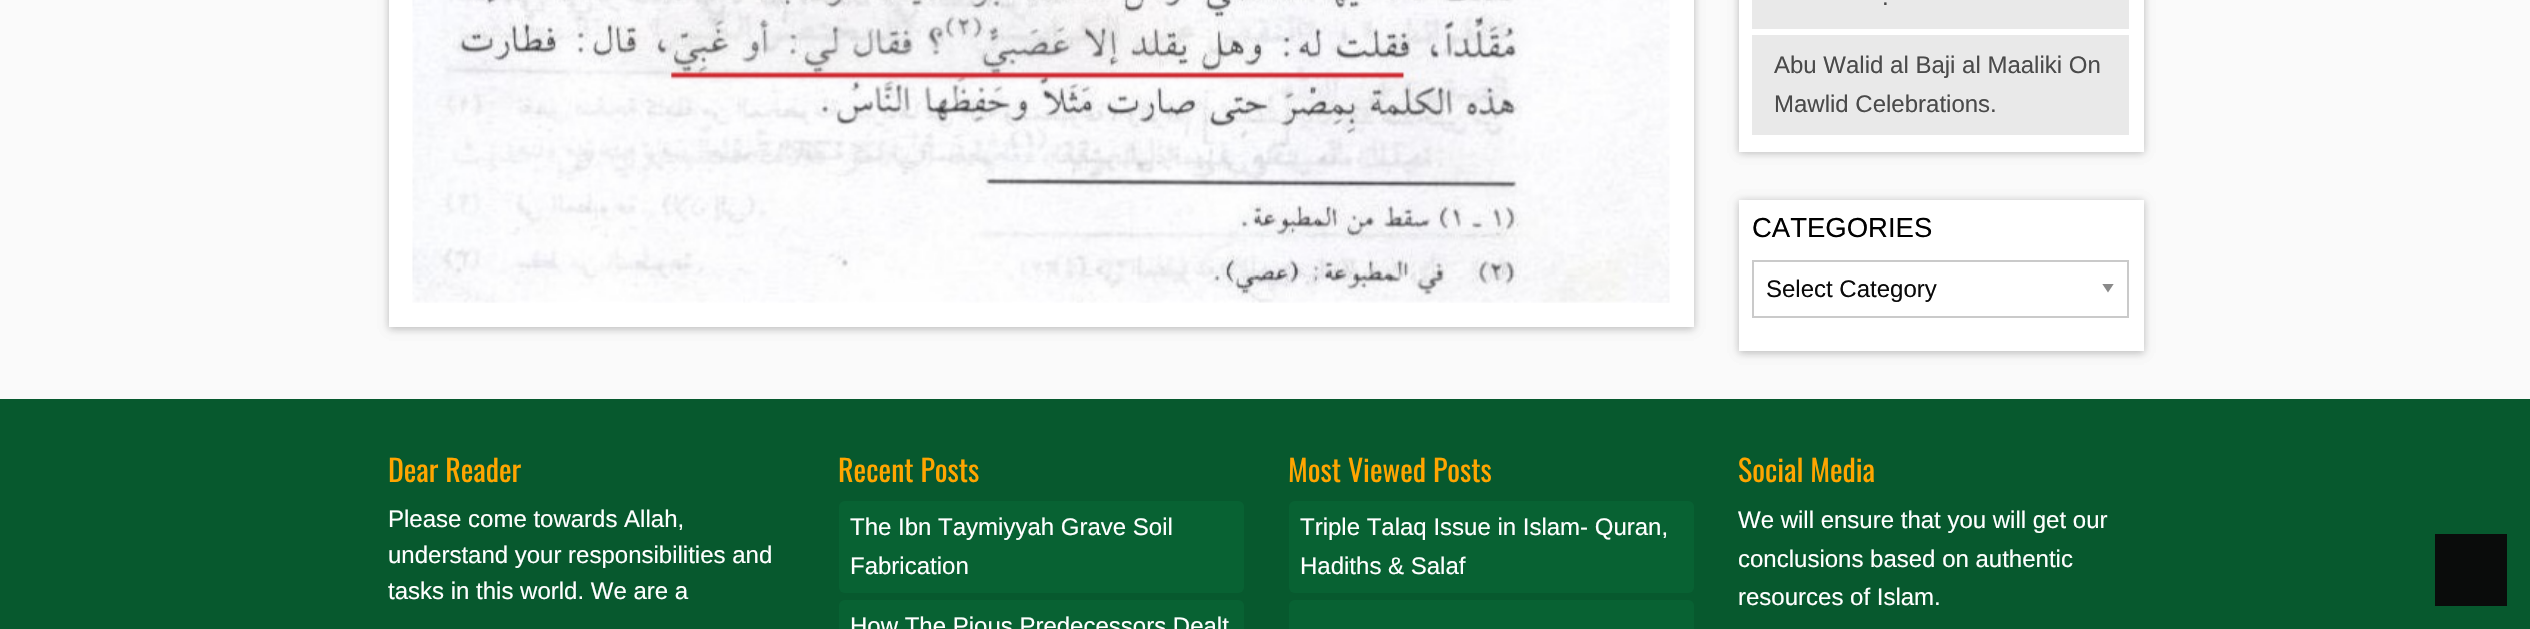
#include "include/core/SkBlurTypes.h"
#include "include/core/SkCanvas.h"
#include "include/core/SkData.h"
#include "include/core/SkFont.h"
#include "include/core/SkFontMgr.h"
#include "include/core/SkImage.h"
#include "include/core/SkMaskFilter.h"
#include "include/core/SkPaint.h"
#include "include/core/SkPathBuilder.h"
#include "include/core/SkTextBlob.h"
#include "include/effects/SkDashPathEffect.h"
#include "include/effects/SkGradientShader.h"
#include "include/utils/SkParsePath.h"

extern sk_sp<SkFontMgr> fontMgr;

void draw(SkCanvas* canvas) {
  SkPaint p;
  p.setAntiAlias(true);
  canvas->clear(SkColorSetRGB(250, 250, 250));
  p.setColor(SkColorSetARGB(31, 0, 0, 0));
  p.setMaskFilter(SkMaskFilter::MakeBlur(kNormal_SkBlurStyle, 4));
  canvas->drawRect(SkRect::MakeLTRB(389, -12, 1694, 329), p);
  p.setMaskFilter(nullptr);
  p.setColor(SkColorSetARGB(36, 0, 0, 0));
  p.setMaskFilter(SkMaskFilter::MakeBlur(kNormal_SkBlurStyle, 4));
  canvas->drawRect(SkRect::MakeLTRB(389, -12, 1694, 329), p);
  p.setMaskFilter(nullptr);
  p.setColor(SK_ColorWHITE);
  canvas->drawRect(SkRect::MakeLTRB(389, 0, 1694, 327), p);
  canvas->drawImageRect(SkImages::DeferredFromEncodedData(SkData::MakeFromFileName("images/1.png")), SkRect::MakeLTRB(412, 0, 1670, 303), SkSamplingOptions());
  p.setColor(SkColorSetARGB(31, 0, 0, 0));
  p.setMaskFilter(SkMaskFilter::MakeBlur(kNormal_SkBlurStyle, 4));
  canvas->drawRect(SkRect::MakeLTRB(1739, -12, 2144, 153), p);
  p.setMaskFilter(nullptr);
  p.setColor(SkColorSetARGB(36, 0, 0, 0));
  p.setMaskFilter(SkMaskFilter::MakeBlur(kNormal_SkBlurStyle, 4));
  canvas->drawRect(SkRect::MakeLTRB(1739, -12, 2144, 153), p);
  p.setMaskFilter(nullptr);
  p.setColor(SK_ColorWHITE);
  canvas->drawRect(SkRect::MakeLTRB(1739, 0, 2144, 152), p);
  p.setColor(SkColorSetRGB(233, 233, 233));
  canvas->drawRect(SkRect::MakeLTRB(1752, 0, 2129, 29), p);
  canvas->drawRect(SkRect::MakeLTRB(1752, 35, 2129, 135), p);
  p.setColor(SkColorSetARGB(31, 0, 0, 0));
  p.setMaskFilter(SkMaskFilter::MakeBlur(kNormal_SkBlurStyle, 4));
  canvas->drawRect(SkRect::MakeLTRB(1739, 201, 2144, 353), p);
  p.setMaskFilter(nullptr);
  p.setColor(SkColorSetARGB(36, 0, 0, 0));
  p.setMaskFilter(SkMaskFilter::MakeBlur(kNormal_SkBlurStyle, 4));
  canvas->drawRect(SkRect::MakeLTRB(1739, 201, 2144, 353), p);
  p.setMaskFilter(nullptr);
  p.setColor(SK_ColorWHITE);
  canvas->drawRect(SkRect::MakeLTRB(1739, 200, 2144, 351), p);
  canvas->save();
  canvas->clipRect(SkRect::MakeLTRB(2102, 284, 2115, 293));
  p.setColor(SkColorSetRGB(138, 138, 138));
  canvas->drawPath(SkPathBuilder().moveTo(2102, 283.5f).lineTo(2114, 283.5f).lineTo(2108, 292.5f).close().detach(), p);
  canvas->restore();
  p.setStyle(SkPaint::kStroke_Style);
  p.setStrokeWidth(2);
  p.setColor(SkColorSetRGB(202, 202, 202));
  canvas->drawRect(SkRect::MakeLTRB(1753, 261, 2128, 317), p);
  p.setStyle(SkPaint::kFill_Style);
  p.setColor(SkColorSetRGB(7, 89, 46));
  canvas->drawRect(SkRect::MakeLTRB(0, 399, 2530, 629), p);
  p.setColor(SkColorSetRGB(8, 98, 51));
  canvas->drawRoundRect(SkRect::MakeLTRB(839, 501, 1244, 593), 6, 6, p);
  canvas->drawRoundRect(SkRect::MakeLTRB(839, 600, 1244, 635), 6, 6, p);
  canvas->drawRoundRect(SkRect::MakeLTRB(1289, 501, 1694, 593), 6, 6, p);
  canvas->drawRoundRect(SkRect::MakeLTRB(1289, 600, 1694, 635), 6, 6, p);
  p.setColor(SkColorSetRGB(10, 12, 11));
  canvas->drawRect(SkRect::MakeLTRB(2435, 534, 2507, 606), p);
  SkFont font1(fontMgr->matchFamilyStyle("Liberation Sans", SkFontStyle::Normal()), 24);
  font1.setSubpixel(true);
  p.setColor(SkColorSetRGB(74, 74, 74));
  canvas->drawString(".", 1882, 5, font1, p);
  canvas->drawString("Abu Walid al Baji al Maaliki On", 1774, 73, font1, p);
  canvas->drawString("Mawlid Celebrations.", 1774, 112, font1, p);
  SkFont font2(fontMgr->matchFamilyStyle("Liberation Sans", SkFontStyle::Normal()), 27.5f);
  font2.setSubpixel(true);
  p.setColor(SK_ColorBLACK);
  canvas->drawString("CATEGORIES", 1752, 237, font2, p);
  p.setColor(SkColorSetRGB(10, 10, 10));
  canvas->drawString("Select Category", 1766, 297, font1, p);
  SkFont font3(fontMgr->matchFamilyStyle("Oswald", SkFontStyle::Normal()), 30);
  font3.setSubpixel(true);
  p.setColor(SkColorSetRGB(255, 165, 0));
  canvas->drawString("Dear Reader", 388, 482, font3, p);
  p.setColor(SK_ColorWHITE);
  canvas->drawString("Please come towards Allah,", 388, 527, font1, p);
  canvas->drawString("understand your responsibilities and", 388, 563, font1, p);
  canvas->drawString("tasks in this world. We are a", 388, 599, font1, p);
  p.setColor(SkColorSetRGB(255, 165, 0));
  canvas->drawString("Recent Posts", 838, 482, font3, p);
  p.setColor(SK_ColorWHITE);
  canvas->drawString("The Ibn Taymiyyah Grave Soil", 850, 535, font1, p);
  canvas->drawString("Fabrication", 850, 574, font1, p);
  canvas->drawString("How The Pious Predecessors Dealt", 850, 634, font1, p);
  p.setColor(SkColorSetRGB(255, 165, 0));
  canvas->drawString("Most Viewed Posts", 1288, 482, font3, p);
  p.setColor(SK_ColorWHITE);
  canvas->drawString("Triple Talaq Issue in Islam- Quran,", 1300, 535, font1, p);
  canvas->drawString("Hadiths & Salaf", 1300, 574, font1, p);
  p.setColor(SkColorSetRGB(255, 165, 0));
  canvas->drawString("Social Media", 1738, 482, font3, p);
  p.setColor(SK_ColorWHITE);
  canvas->drawString("We will ensure that you will get our", 1738, 528, font1, p);
  canvas->drawString("conclusions based on authentic", 1738, 567, font1, p);
  canvas->drawString("resources of Islam.", 1738, 605, font1, p);
}
